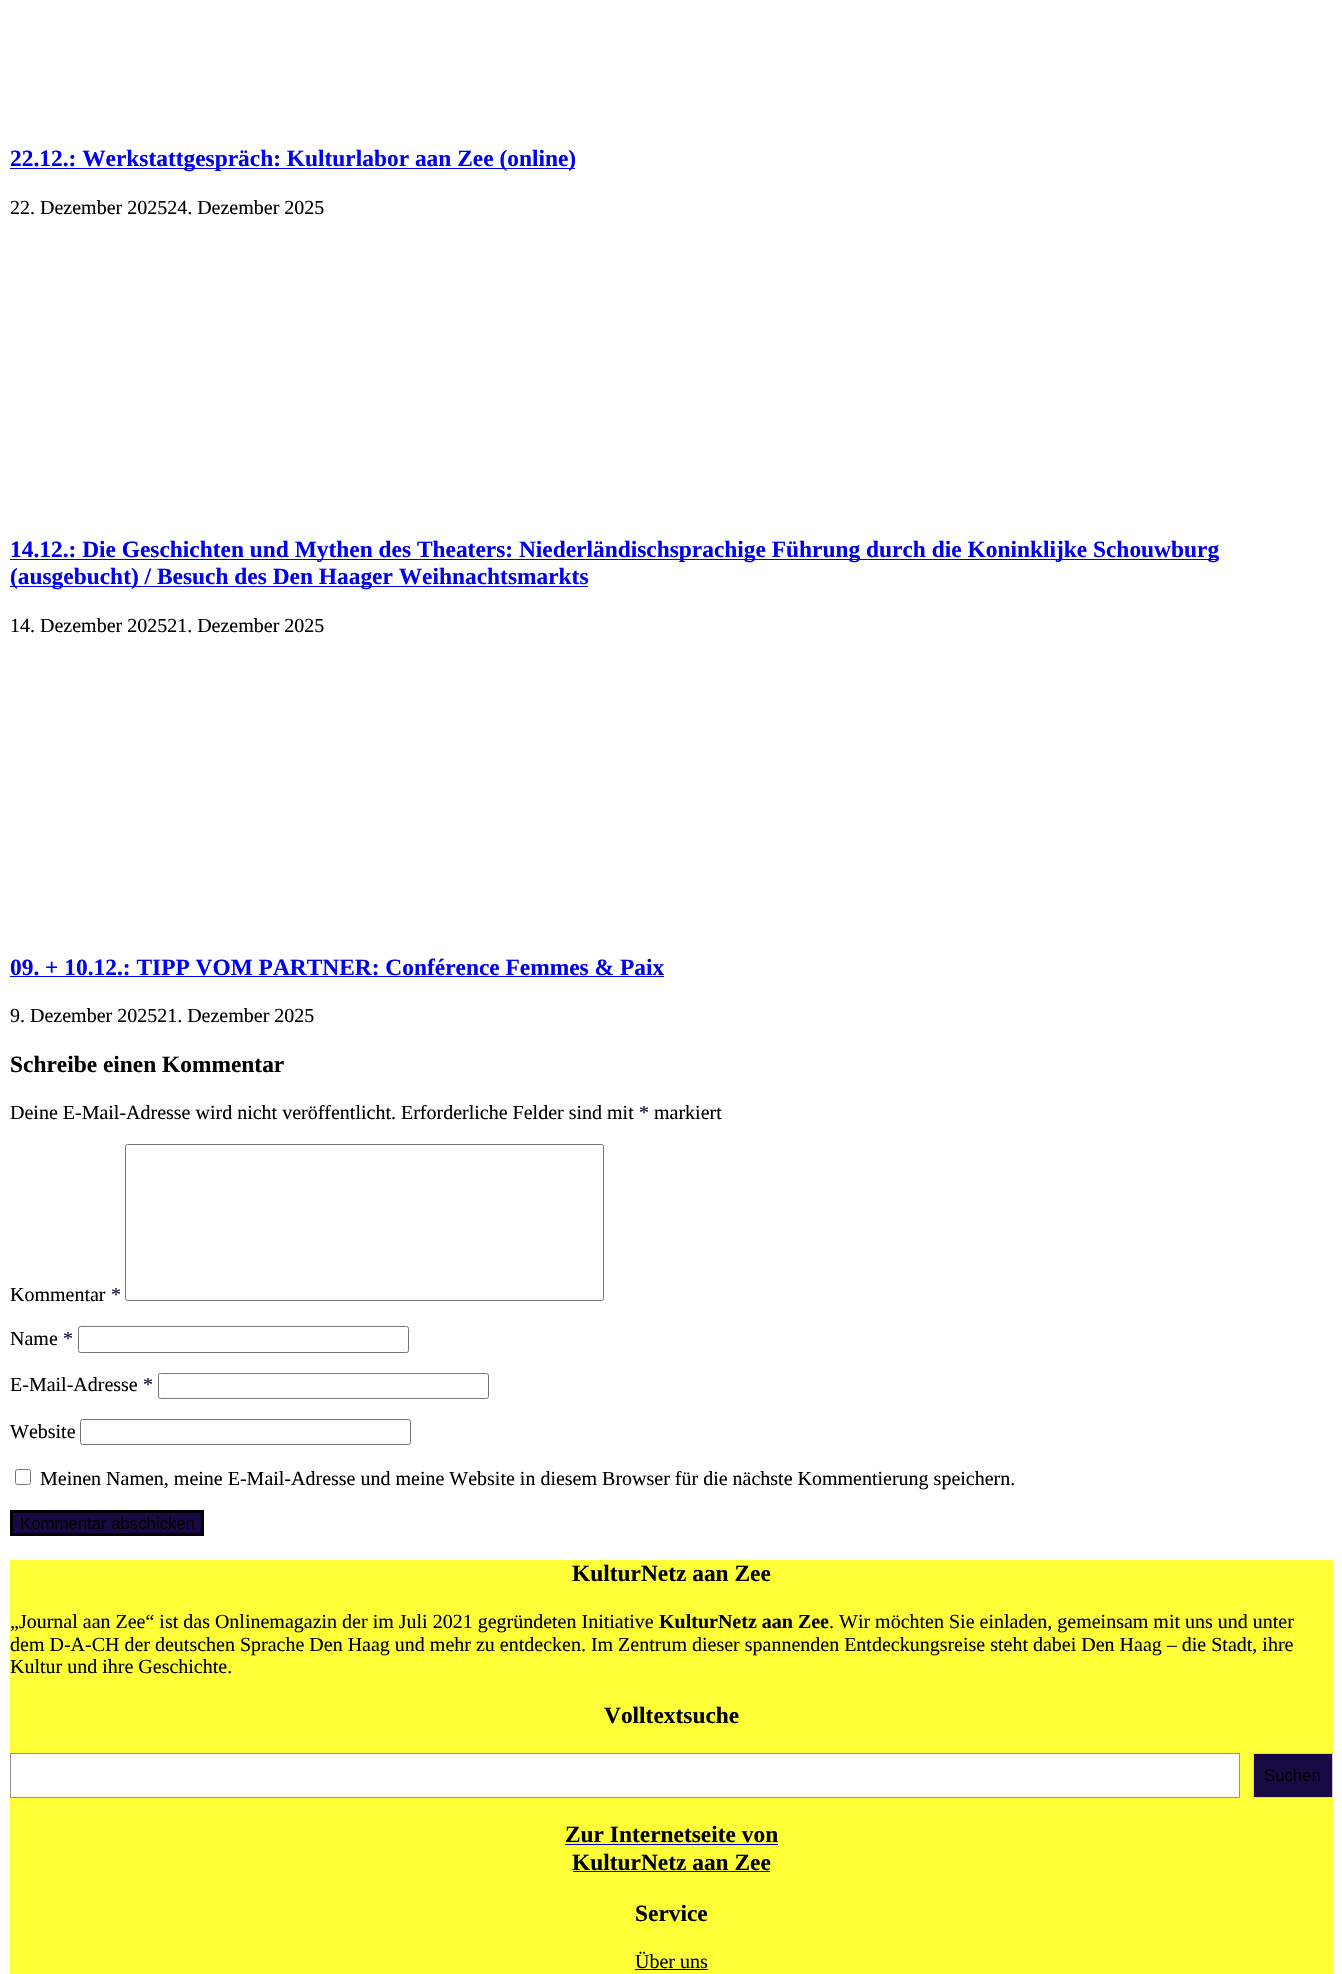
#include "include/core/SkBlurTypes.h"
#include "include/core/SkCanvas.h"
#include "include/core/SkData.h"
#include "include/core/SkFont.h"
#include "include/core/SkFontMgr.h"
#include "include/core/SkImage.h"
#include "include/core/SkMaskFilter.h"
#include "include/core/SkPaint.h"
#include "include/core/SkPathBuilder.h"
#include "include/core/SkTextBlob.h"
#include "include/effects/SkDashPathEffect.h"
#include "include/effects/SkGradientShader.h"
#include "include/utils/SkParsePath.h"

extern sk_sp<SkFontMgr> fontMgr;

void draw(SkCanvas* canvas) {
  SkPaint p;
  p.setAntiAlias(true);
  canvas->clear(SK_ColorWHITE);
  p.setColor(SkColorSetRGB(0, 0, 238));
  canvas->drawRect(SkRect::MakeLTRB(10, 168, 575, 169), p);
  canvas->drawRect(SkRect::MakeLTRB(10, 559, 1218, 560), p);
  canvas->drawRect(SkRect::MakeLTRB(10, 586, 588, 587), p);
  canvas->drawRect(SkRect::MakeLTRB(10, 976, 664, 977), p);
  p.setStyle(SkPaint::kStroke_Style);
  p.setStrokeWidth(1);
  p.setColor(SkColorSetRGB(118, 118, 118));
  canvas->drawRoundRect(SkRect::MakeLTRB(125.5f, 1144.5f, 603.5f, 1300.5f), 2, 2, p);
  canvas->drawRoundRect(SkRect::MakeLTRB(78.5f, 1326.5f, 408.5f, 1352.5f), 2, 2, p);
  canvas->drawRoundRect(SkRect::MakeLTRB(158.5f, 1373.5f, 488.5f, 1398.5f), 2, 2, p);
  canvas->drawRoundRect(SkRect::MakeLTRB(80.5f, 1419.5f, 410.5f, 1444.5f), 2, 2, p);
  canvas->drawRoundRect(SkRect::MakeLTRB(15.5f, 1469.5f, 30.5f, 1484.5f), 2, 2, p);
  p.setStyle(SkPaint::kFill_Style);
  p.setColor(SkColorSetRGB(24, 9, 68));
  canvas->drawRect(SkRect::MakeLTRB(11.5f, 1511.5f, 202.5f, 1534.5f), p);
  p.setStyle(SkPaint::kStroke_Style);
  p.setStrokeWidth(3);
  p.setColor(SK_ColorBLACK);
  canvas->drawRect(SkRect::MakeLTRB(11.5f, 1511.5f, 202.5f, 1534.5f), p);
  p.setStyle(SkPaint::kFill_Style);
  p.setColor(SkColorSetRGB(255, 255, 56));
  canvas->drawRect(SkRect::MakeLTRB(10, 1560, 1333, 1974), p);
  p.setColor(SK_ColorWHITE);
  canvas->drawRect(SkRect::MakeLTRB(10.5f, 1753.5f, 1239.5f, 1797.5f), p);
  p.setStyle(SkPaint::kStroke_Style);
  p.setStrokeWidth(1);
  p.setColor(SkColorSetRGB(148, 148, 148));
  canvas->drawRect(SkRect::MakeLTRB(10.5f, 1753.5f, 1239.5f, 1797.5f), p);
  p.setStyle(SkPaint::kFill_Style);
  p.setColor(SkColorSetRGB(24, 9, 68));
  canvas->drawRect(SkRect::MakeLTRB(1253.5f, 1753.5f, 1332.5f, 1797.5f), p);
  p.setStyle(SkPaint::kStroke_Style);
  p.setColor(SkColorSetRGB(204, 204, 204));
  canvas->drawRect(SkRect::MakeLTRB(1253.5f, 1753.5f, 1332.5f, 1797.5f), p);
  p.setStyle(SkPaint::kFill_Style);
  p.setColor(SkColorSetRGB(0, 0, 238));
  canvas->drawRect(SkRect::MakeLTRB(565, 1844, 778, 1845), p);
  canvas->drawRect(SkRect::MakeLTRB(573, 1871, 770, 1872), p);
  p.setColor(SK_ColorBLACK);
  canvas->drawRect(SkRect::MakeLTRB(635, 1969, 708, 1970), p);
  SkFont font1(fontMgr->matchFamilyStyle("Liberation Serif", SkFontStyle::Bold()), 23.4f);
  font1.setSubpixel(true);
  p.setColor(SkColorSetRGB(0, 0, 238));
  canvas->drawString("22.12.: Werkstattgespräch: Kulturlabor aan Zee (online)", 10, 166, font1, p);
  SkFont font2(fontMgr->matchFamilyStyle("Liberation Serif", SkFontStyle::Normal()), 20);
  font2.setSubpixel(true);
  p.setColor(SK_ColorBLACK);
  canvas->drawString("22. Dezember 202524. Dezember 2025", 10, 214, font2, p);
  p.setColor(SkColorSetRGB(0, 0, 238));
  canvas->drawString("14.12.: Die Geschichten und Mythen des Theaters: Niederländischsprachige Führung durch die Koninklijke Schouwburg", 10, 557, font1, p);
  canvas->drawString("(ausgebucht) / Besuch des Den Haager Weihnachtsmarkts", 10, 584, font1, p);
  p.setColor(SK_ColorBLACK);
  canvas->drawString("14. Dezember 202521. Dezember 2025", 10, 632, font2, p);
  p.setColor(SkColorSetRGB(0, 0, 238));
  canvas->drawString("09. + 10.12.: TIPP VOM PARTNER: Conférence Femmes & Paix", 10, 975, font1, p);
  p.setColor(SK_ColorBLACK);
  canvas->drawString("9. Dezember 202521. Dezember 2025", 10, 1022, font2, p);
  canvas->drawString("Schreibe einen Kommentar", 10, 1072, font1, p);
  canvas->drawString("Deine E-Mail-Adresse wird nicht veröffentlicht. Erforderliche Felder sind mit", 10, 1119, font2, p);
  p.setColor(SkColorSetRGB(24, 9, 68));
  canvas->drawString("*", 639, 1119, font2, p);
  p.setColor(SK_ColorBLACK);
  canvas->drawString("markiert", 654, 1119, font2, p);
  canvas->drawString("Kommentar", 10, 1301, font2, p);
  p.setColor(SkColorSetRGB(24, 9, 68));
  canvas->drawString("*", 111, 1301, font2, p);
  p.setColor(SK_ColorBLACK);
  canvas->drawString("Name", 10, 1345, font2, p);
  p.setColor(SkColorSetRGB(24, 9, 68));
  canvas->drawString("*", 63, 1345, font2, p);
  p.setColor(SK_ColorBLACK);
  canvas->drawString("E-Mail-Adresse", 10, 1391, font2, p);
  p.setColor(SkColorSetRGB(24, 9, 68));
  canvas->drawString("*", 143, 1391, font2, p);
  p.setColor(SK_ColorBLACK);
  canvas->drawString("Website", 10, 1438, font2, p);
  canvas->drawString("Meinen Namen, meine E-Mail-Adresse und meine Website in diesem Browser für die nächste Kommentierung speichern.", 40, 1485, font2, p);
  SkFont font3(fontMgr->matchFamilyStyle("Liberation Sans", SkFontStyle::Normal()), 16.75f);
  font3.setSubpixel(true);
  canvas->drawString("Kommentar abschicken", 20, 1529, font3, p);
  canvas->drawString("KulturNetz aan Zee", 572, 1581, font1, p);
  canvas->drawString("„Journal aan Zee“ ist das Onlinemagazin der im Juli 2021 gegründeten Initiative", 10, 1628, font2, p);
  SkFont font4(fontMgr->matchFamilyStyle("Liberation Serif", SkFontStyle::Bold()), 20);
  font4.setSubpixel(true);
  canvas->drawString("KulturNetz aan Zee", 659, 1628, font4, p);
  canvas->drawString(". Wir möchten Sie einladen, gemeinsam mit uns und unter", 829, 1628, font2, p);
  canvas->drawString("dem D-A-CH der deutschen Sprache Den Haag und mehr zu entdecken. Im Zentrum dieser spannenden Entdeckungsreise steht dabei Den Haag – die Stadt, ihre", 10, 1651, font2, p);
  canvas->drawString("Kultur und ihre Geschichte.", 10, 1673, font2, p);
  canvas->drawString("Volltextsuche", 604, 1723, font1, p);
  canvas->drawString("Suchen", 1264, 1781, font3, p);
  canvas->drawString("Zur Internetseite von", 565, 1842, font1, p);
  canvas->drawString("KulturNetz aan Zee", 572, 1870, font1, p);
  canvas->drawString("Service", 635, 1921, font1, p);
  canvas->drawString("Über uns", 635, 1968, font2, p);
}
